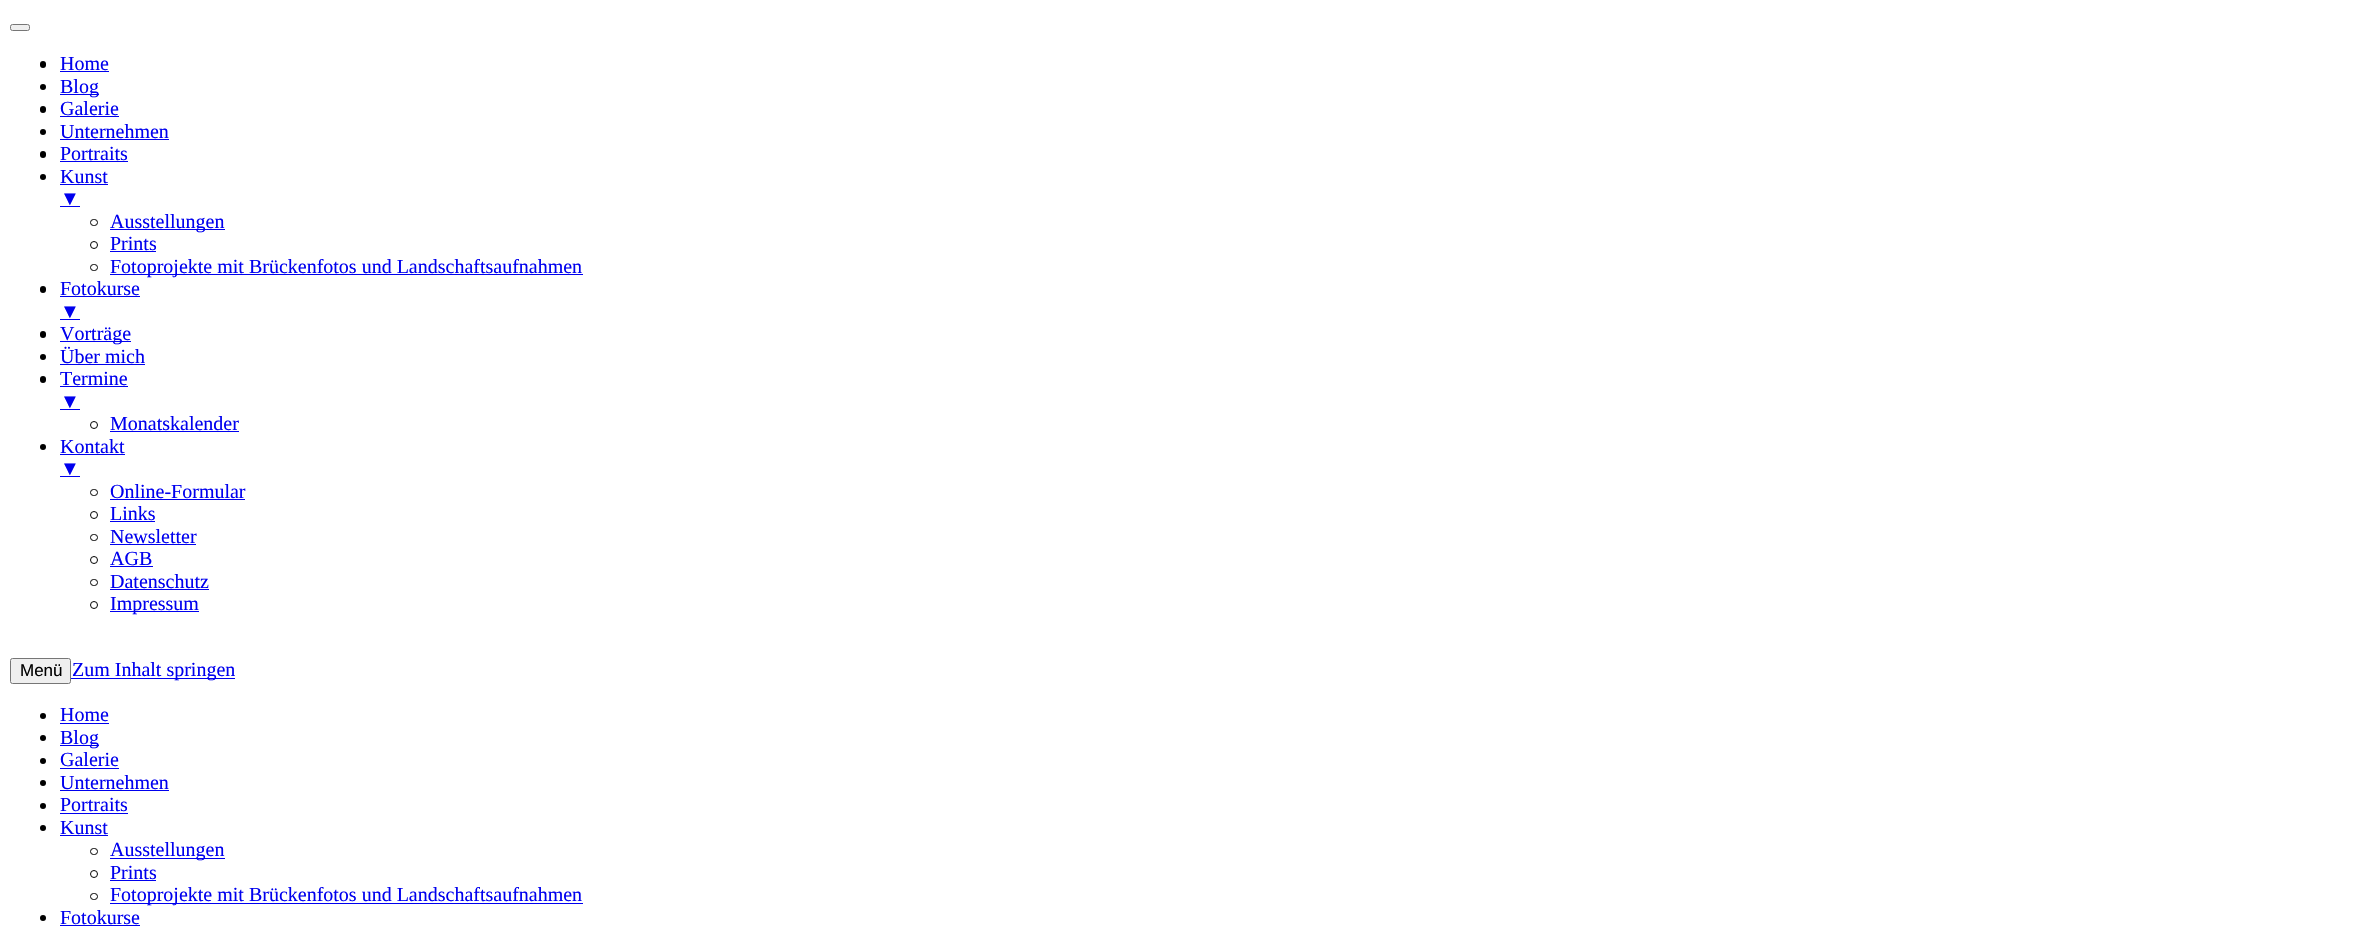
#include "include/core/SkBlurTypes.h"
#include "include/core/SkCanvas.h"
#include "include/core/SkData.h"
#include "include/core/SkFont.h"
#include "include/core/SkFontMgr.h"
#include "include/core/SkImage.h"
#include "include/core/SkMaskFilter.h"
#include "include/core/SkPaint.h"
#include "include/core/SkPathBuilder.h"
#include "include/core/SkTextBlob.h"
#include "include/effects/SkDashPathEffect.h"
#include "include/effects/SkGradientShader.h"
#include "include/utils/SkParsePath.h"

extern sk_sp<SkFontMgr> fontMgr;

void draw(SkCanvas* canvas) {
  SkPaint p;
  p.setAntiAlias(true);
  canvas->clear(SK_ColorWHITE);
  p.setColor(SkColorSetRGB(239, 239, 239));
  canvas->drawRoundRect(SkRect::MakeLTRB(10.5f, 24.5f, 29.5f, 30.5f), 2, 2, p);
  p.setStyle(SkPaint::kStroke_Style);
  p.setStrokeWidth(1);
  p.setColor(SkColorSetRGB(118, 118, 118));
  canvas->drawRoundRect(SkRect::MakeLTRB(10.5f, 24.5f, 29.5f, 30.5f), 2, 2, p);
  p.setStyle(SkPaint::kFill_Style);
  p.setColor(SK_ColorBLACK);
  canvas->drawRoundRect(SkRect::MakeLTRB(40, 61, 46, 68), 3, 3, p);
  p.setColor(SkColorSetRGB(0, 0, 238));
  canvas->drawRect(SkRect::MakeLTRB(60, 71, 109, 72), p);
  p.setColor(SK_ColorBLACK);
  canvas->drawCircle(43, 87, 3, p);
  p.setColor(SkColorSetRGB(0, 0, 238));
  canvas->drawRect(SkRect::MakeLTRB(60, 94, 99, 95), p);
  p.setColor(SK_ColorBLACK);
  canvas->drawRoundRect(SkRect::MakeLTRB(40, 106, 46, 113), 3, 3, p);
  p.setColor(SkColorSetRGB(0, 0, 238));
  canvas->drawRect(SkRect::MakeLTRB(60, 116, 119, 117), p);
  p.setColor(SK_ColorBLACK);
  canvas->drawCircle(43, 132, 3, p);
  p.setColor(SkColorSetRGB(0, 0, 238));
  canvas->drawRect(SkRect::MakeLTRB(60, 139, 169, 140), p);
  p.setColor(SK_ColorBLACK);
  canvas->drawRoundRect(SkRect::MakeLTRB(40, 151, 46, 158), 3, 3, p);
  p.setColor(SkColorSetRGB(0, 0, 238));
  canvas->drawRect(SkRect::MakeLTRB(60, 161, 128, 162), p);
  p.setColor(SK_ColorBLACK);
  canvas->drawCircle(43, 177, 3, p);
  p.setColor(SkColorSetRGB(0, 0, 238));
  canvas->drawRect(SkRect::MakeLTRB(60, 184, 108, 185), p);
  canvas->drawRect(SkRect::MakeLTRB(60, 206, 80, 207), p);
  p.setStyle(SkPaint::kStroke_Style);
  p.setColor(SK_ColorBLACK);
  canvas->drawRoundRect(SkRect::MakeLTRB(90.5f, 219.5f, 97.5f, 225.5f), 3, 3, p);
  p.setStyle(SkPaint::kFill_Style);
  p.setColor(SkColorSetRGB(0, 0, 238));
  canvas->drawRect(SkRect::MakeLTRB(110, 229, 225, 230), p);
  p.setStyle(SkPaint::kStroke_Style);
  p.setColor(SK_ColorBLACK);
  canvas->drawCircle(94, 245, 3.5f, p);
  p.setStyle(SkPaint::kFill_Style);
  p.setColor(SkColorSetRGB(0, 0, 238));
  canvas->drawRect(SkRect::MakeLTRB(110, 251, 156, 252), p);
  p.setStyle(SkPaint::kStroke_Style);
  p.setColor(SK_ColorBLACK);
  canvas->drawRoundRect(SkRect::MakeLTRB(90.5f, 264.5f, 97.5f, 270.5f), 3, 3, p);
  p.setStyle(SkPaint::kFill_Style);
  p.setColor(SkColorSetRGB(0, 0, 238));
  canvas->drawRect(SkRect::MakeLTRB(110, 274, 583, 275), p);
  p.setColor(SK_ColorBLACK);
  canvas->drawRoundRect(SkRect::MakeLTRB(40, 286, 46, 293), 3, 3, p);
  p.setColor(SkColorSetRGB(0, 0, 238));
  canvas->drawRect(SkRect::MakeLTRB(60, 296, 140, 297), p);
  canvas->drawRect(SkRect::MakeLTRB(60, 319, 80, 320), p);
  p.setColor(SK_ColorBLACK);
  canvas->drawRoundRect(SkRect::MakeLTRB(40, 331, 46, 338), 3, 3, p);
  p.setColor(SkColorSetRGB(0, 0, 238));
  canvas->drawRect(SkRect::MakeLTRB(60, 341, 131, 342), p);
  p.setColor(SK_ColorBLACK);
  canvas->drawCircle(43, 357, 3, p);
  p.setColor(SkColorSetRGB(0, 0, 238));
  canvas->drawRect(SkRect::MakeLTRB(60, 364, 145, 365), p);
  p.setColor(SK_ColorBLACK);
  canvas->drawRoundRect(SkRect::MakeLTRB(40, 376, 46, 383), 3, 3, p);
  p.setColor(SkColorSetRGB(0, 0, 238));
  canvas->drawRect(SkRect::MakeLTRB(60, 386, 128, 387), p);
  canvas->drawRect(SkRect::MakeLTRB(60, 409, 80, 410), p);
  p.setStyle(SkPaint::kStroke_Style);
  p.setColor(SK_ColorBLACK);
  canvas->drawCircle(94, 425, 3.5f, p);
  p.setStyle(SkPaint::kFill_Style);
  p.setColor(SkColorSetRGB(0, 0, 238));
  canvas->drawRect(SkRect::MakeLTRB(110, 431, 239, 432), p);
  p.setColor(SK_ColorBLACK);
  canvas->drawCircle(43, 447, 3, p);
  p.setColor(SkColorSetRGB(0, 0, 238));
  canvas->drawRect(SkRect::MakeLTRB(60, 454, 125, 455), p);
  canvas->drawRect(SkRect::MakeLTRB(60, 476, 80, 477), p);
  p.setStyle(SkPaint::kStroke_Style);
  p.setColor(SK_ColorBLACK);
  canvas->drawRoundRect(SkRect::MakeLTRB(90.5f, 489.5f, 97.5f, 495.5f), 3, 3, p);
  p.setStyle(SkPaint::kFill_Style);
  p.setColor(SkColorSetRGB(0, 0, 238));
  canvas->drawRect(SkRect::MakeLTRB(110, 499, 245, 500), p);
  p.setStyle(SkPaint::kStroke_Style);
  p.setColor(SK_ColorBLACK);
  canvas->drawCircle(94, 515, 3.5f, p);
  p.setStyle(SkPaint::kFill_Style);
  p.setColor(SkColorSetRGB(0, 0, 238));
  canvas->drawRect(SkRect::MakeLTRB(110, 521, 155, 522), p);
  p.setStyle(SkPaint::kStroke_Style);
  p.setColor(SK_ColorBLACK);
  canvas->drawRoundRect(SkRect::MakeLTRB(90.5f, 534.5f, 97.5f, 540.5f), 3, 3, p);
  p.setStyle(SkPaint::kFill_Style);
  p.setColor(SkColorSetRGB(0, 0, 238));
  canvas->drawRect(SkRect::MakeLTRB(110, 544, 196, 545), p);
  p.setStyle(SkPaint::kStroke_Style);
  p.setColor(SK_ColorBLACK);
  canvas->drawCircle(94, 560, 3.5f, p);
  p.setStyle(SkPaint::kFill_Style);
  p.setColor(SkColorSetRGB(0, 0, 238));
  canvas->drawRect(SkRect::MakeLTRB(110, 566, 153, 567), p);
  p.setStyle(SkPaint::kStroke_Style);
  p.setColor(SK_ColorBLACK);
  canvas->drawRoundRect(SkRect::MakeLTRB(90.5f, 579.5f, 97.5f, 585.5f), 3, 3, p);
  p.setStyle(SkPaint::kFill_Style);
  p.setColor(SkColorSetRGB(0, 0, 238));
  canvas->drawRect(SkRect::MakeLTRB(110, 589, 209, 590), p);
  p.setStyle(SkPaint::kStroke_Style);
  p.setColor(SK_ColorBLACK);
  canvas->drawCircle(94, 605, 3.5f, p);
  p.setStyle(SkPaint::kFill_Style);
  p.setColor(SkColorSetRGB(0, 0, 238));
  canvas->drawRect(SkRect::MakeLTRB(110, 611, 199, 612), p);
  p.setColor(SkColorSetRGB(239, 239, 239));
  canvas->drawRoundRect(SkRect::MakeLTRB(10.5f, 658.5f, 70.5f, 683.5f), 2, 2, p);
  p.setStyle(SkPaint::kStroke_Style);
  p.setColor(SkColorSetRGB(118, 118, 118));
  canvas->drawRoundRect(SkRect::MakeLTRB(10.5f, 658.5f, 70.5f, 683.5f), 2, 2, p);
  p.setStyle(SkPaint::kFill_Style);
  p.setColor(SkColorSetRGB(0, 0, 238));
  canvas->drawRect(SkRect::MakeLTRB(71, 678, 235, 679), p);
  p.setColor(SK_ColorBLACK);
  canvas->drawCircle(43, 716, 3, p);
  p.setColor(SkColorSetRGB(0, 0, 238));
  canvas->drawRect(SkRect::MakeLTRB(60, 723, 109, 724), p);
  p.setColor(SK_ColorBLACK);
  canvas->drawCircle(43, 738, 3, p);
  p.setColor(SkColorSetRGB(0, 0, 238));
  canvas->drawRect(SkRect::MakeLTRB(60, 745, 99, 746), p);
  p.setColor(SK_ColorBLACK);
  canvas->drawCircle(43, 761, 3, p);
  p.setColor(SkColorSetRGB(0, 0, 238));
  canvas->drawRect(SkRect::MakeLTRB(60, 768, 119, 769), p);
  p.setColor(SK_ColorBLACK);
  canvas->drawCircle(43, 783, 3, p);
  p.setColor(SkColorSetRGB(0, 0, 238));
  canvas->drawRect(SkRect::MakeLTRB(60, 790, 169, 791), p);
  p.setColor(SK_ColorBLACK);
  canvas->drawCircle(43, 806, 3, p);
  p.setColor(SkColorSetRGB(0, 0, 238));
  canvas->drawRect(SkRect::MakeLTRB(60, 813, 128, 814), p);
  p.setColor(SK_ColorBLACK);
  canvas->drawCircle(43, 828, 3, p);
  p.setColor(SkColorSetRGB(0, 0, 238));
  canvas->drawRect(SkRect::MakeLTRB(60, 835, 108, 836), p);
  p.setStyle(SkPaint::kStroke_Style);
  p.setColor(SK_ColorBLACK);
  canvas->drawRoundRect(SkRect::MakeLTRB(90.5f, 848.5f, 97.5f, 854.5f), 3, 3, p);
  p.setStyle(SkPaint::kFill_Style);
  p.setColor(SkColorSetRGB(0, 0, 238));
  canvas->drawRect(SkRect::MakeLTRB(110, 858, 225, 859), p);
  p.setStyle(SkPaint::kStroke_Style);
  p.setColor(SK_ColorBLACK);
  canvas->drawCircle(94, 874, 3.5f, p);
  p.setStyle(SkPaint::kFill_Style);
  p.setColor(SkColorSetRGB(0, 0, 238));
  canvas->drawRect(SkRect::MakeLTRB(110, 880, 156, 881), p);
  p.setStyle(SkPaint::kStroke_Style);
  p.setColor(SK_ColorBLACK);
  canvas->drawRoundRect(SkRect::MakeLTRB(90.5f, 893.5f, 97.5f, 899.5f), 3, 3, p);
  p.setStyle(SkPaint::kFill_Style);
  p.setColor(SkColorSetRGB(0, 0, 238));
  canvas->drawRect(SkRect::MakeLTRB(110, 903, 583, 904), p);
  p.setColor(SK_ColorBLACK);
  canvas->drawCircle(43, 918, 3, p);
  p.setColor(SkColorSetRGB(0, 0, 238));
  canvas->drawRect(SkRect::MakeLTRB(60, 925, 140, 926), p);
  SkFont font1(fontMgr->matchFamilyStyle("Liberation Serif", SkFontStyle::Normal()), 20);
  font1.setSubpixel(true);
  canvas->drawString("Home", 60, 70, font1, p);
  canvas->drawString("Blog", 60, 93, font1, p);
  canvas->drawString("Galerie", 60, 115, font1, p);
  canvas->drawString("Unternehmen", 60, 138, font1, p);
  canvas->drawString("Portraits", 60, 160, font1, p);
  canvas->drawString("Kunst", 60, 183, font1, p);
  canvas->drawString("▼", 60, 205, font1, p);
  canvas->drawString("Ausstellungen", 110, 228, font1, p);
  canvas->drawString("Prints", 110, 250, font1, p);
  canvas->drawString("Fotoprojekte mit Brückenfotos und Landschaftsaufnahmen", 110, 273, font1, p);
  canvas->drawString("Fotokurse", 60, 295, font1, p);
  canvas->drawString("▼", 60, 318, font1, p);
  canvas->drawString("Vorträge", 60, 340, font1, p);
  canvas->drawString("Über mich", 60, 363, font1, p);
  canvas->drawString("Termine", 60, 385, font1, p);
  canvas->drawString("▼", 60, 408, font1, p);
  canvas->drawString("Monatskalender", 110, 430, font1, p);
  canvas->drawString("Kontakt", 60, 453, font1, p);
  canvas->drawString("▼", 60, 475, font1, p);
  canvas->drawString("Online-Formular", 110, 498, font1, p);
  canvas->drawString("Links", 110, 520, font1, p);
  canvas->drawString("Newsletter", 110, 543, font1, p);
  canvas->drawString("AGB", 110, 565, font1, p);
  canvas->drawString("Datenschutz", 110, 588, font1, p);
  canvas->drawString("Impressum", 110, 610, font1, p);
  SkFont font2(fontMgr->matchFamilyStyle("Liberation Sans", SkFontStyle::Normal()), 17);
  font2.setSubpixel(true);
  p.setColor(SK_ColorBLACK);
  canvas->drawString("Menü", 20, 676, font2, p);
  p.setColor(SkColorSetRGB(0, 0, 238));
  canvas->drawString("Zum Inhalt springen", 72, 676, font1, p);
  canvas->drawString("Home", 60, 721, font1, p);
  canvas->drawString("Blog", 60, 744, font1, p);
  canvas->drawString("Galerie", 60, 766, font1, p);
  canvas->drawString("Unternehmen", 60, 789, font1, p);
  canvas->drawString("Portraits", 60, 811, font1, p);
  canvas->drawString("Kunst", 60, 834, font1, p);
  canvas->drawString("Ausstellungen", 110, 856, font1, p);
  canvas->drawString("Prints", 110, 879, font1, p);
  canvas->drawString("Fotoprojekte mit Brückenfotos und Landschaftsaufnahmen", 110, 901, font1, p);
  canvas->drawString("Fotokurse", 60, 924, font1, p);
}
